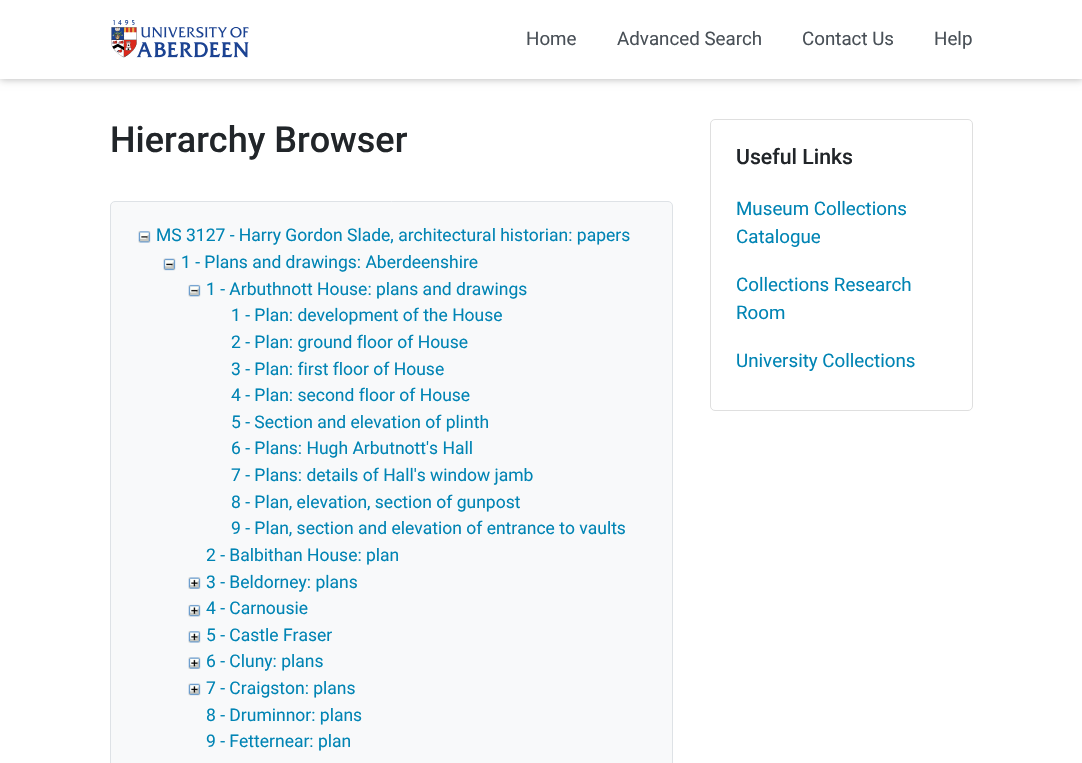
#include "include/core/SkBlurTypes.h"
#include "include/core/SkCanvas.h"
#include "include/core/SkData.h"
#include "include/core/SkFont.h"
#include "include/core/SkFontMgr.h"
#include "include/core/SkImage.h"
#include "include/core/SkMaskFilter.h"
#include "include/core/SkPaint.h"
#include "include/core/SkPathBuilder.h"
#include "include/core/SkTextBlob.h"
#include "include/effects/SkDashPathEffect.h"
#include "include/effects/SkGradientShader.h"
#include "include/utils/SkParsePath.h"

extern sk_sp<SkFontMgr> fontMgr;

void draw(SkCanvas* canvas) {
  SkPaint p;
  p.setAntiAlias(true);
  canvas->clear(SK_ColorWHITE);
  p.setColor(SkColorSetARGB(77, 0, 0, 0));
  p.setMaskFilter(SkMaskFilter::MakeBlur(kNormal_SkBlurStyle, 4));
  canvas->drawRect(SkRect::MakeLTRB(0, 0, 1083, 79), p);
  p.setMaskFilter(nullptr);
  p.setColor(SK_ColorWHITE);
  canvas->drawRect(SkRect::MakeLTRB(0, 0, 1082, 79), p);
  canvas->drawImageRect(SkImages::DeferredFromEncodedData(SkData::MakeFromFileName("images/1.png")), SkRect::MakeLTRB(111, 20, 249, 58), SkSamplingOptions());
  p.setColor(SkColorSetRGB(248, 249, 250));
  canvas->drawRoundRect(SkRect::MakeLTRB(110.5f, 201.5f, 672.5f, 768.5f), 4.5f, 4.5f, p);
  p.setStyle(SkPaint::kStroke_Style);
  p.setStrokeWidth(1);
  p.setColor(SkColorSetRGB(222, 226, 230));
  canvas->drawRoundRect(SkRect::MakeLTRB(110.5f, 201.5f, 672.5f, 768.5f), 4.5f, 4.5f, p);
  canvas->drawImageRect(SkImages::DeferredFromEncodedData(SkData::MakeFromFileName("images/2.png")), SkRect::MakeLTRB(138, 231, 151, 243), SkSamplingOptions());
  canvas->drawImageRect(SkImages::DeferredFromEncodedData(SkData::MakeFromFileName("images/3.png")), SkRect::MakeLTRB(163, 258, 176, 271), SkSamplingOptions());
  canvas->drawImageRect(SkImages::DeferredFromEncodedData(SkData::MakeFromFileName("images/4.png")), SkRect::MakeLTRB(188, 284, 201, 297), SkSamplingOptions());
  canvas->drawImageRect(SkImages::DeferredFromEncodedData(SkData::MakeFromFileName("images/5.png")), SkRect::MakeLTRB(188, 577, 201, 589), SkSamplingOptions());
  canvas->drawImageRect(SkImages::DeferredFromEncodedData(SkData::MakeFromFileName("images/6.png")), SkRect::MakeLTRB(188, 604, 201, 617), SkSamplingOptions());
  canvas->drawImageRect(SkImages::DeferredFromEncodedData(SkData::MakeFromFileName("images/7.png")), SkRect::MakeLTRB(188, 631, 201, 643), SkSamplingOptions());
  canvas->drawImageRect(SkImages::DeferredFromEncodedData(SkData::MakeFromFileName("images/5.png")), SkRect::MakeLTRB(188, 657, 201, 669), SkSamplingOptions());
  canvas->drawImageRect(SkImages::DeferredFromEncodedData(SkData::MakeFromFileName("images/8.png")), SkRect::MakeLTRB(188, 683, 201, 696), SkSamplingOptions());
  p.setColor(SkColorSetRGB(223, 223, 223));
  canvas->drawRoundRect(SkRect::MakeLTRB(710.5f, 119.5f, 972.5f, 410.5f), 4.5f, 4.5f, p);
  SkFont font1(fontMgr->matchFamilyStyle("Roboto", SkFontStyle::Normal()), 18.75f);
  font1.setSubpixel(true);
  p.setStyle(SkPaint::kFill_Style);
  p.setColor(SkColorSetRGB(73, 80, 87));
  canvas->drawString("Home", 526, 45, font1, p);
  canvas->drawString("Advanced Search", 617, 45, font1, p);
  canvas->drawString("Contact Us", 802, 45, font1, p);
  canvas->drawString("Help", 934, 45, font1, p);
  SkFont font2(fontMgr->matchFamilyStyle("Roboto", SkFontStyle(500, SkFontStyle::kNormal_Width, SkFontStyle::kUpright_Slant)), 36);
  font2.setSubpixel(true);
  p.setColor(SkColorSetRGB(33, 37, 41));
  canvas->drawString("Hierarchy Browser", 110, 152, font2, p);
  SkFont font3(fontMgr->matchFamilyStyle("Roboto", SkFontStyle::Normal()), 17.5f);
  font3.setSubpixel(true);
  p.setColor(SkColorSetRGB(0, 132, 180));
  canvas->drawString("MS 3127 - Harry Gordon Slade, architectural historian: papers", 156, 241, font3, p);
  canvas->drawString("1 - Plans and drawings: Aberdeenshire", 181, 268, font3, p);
  canvas->drawString("1 - Arbuthnott House: plans and drawings", 206, 295, font3, p);
  canvas->drawString("1 - Plan: development of the House", 231, 321, font3, p);
  canvas->drawString("2 - Plan: ground floor of House", 231, 348, font3, p);
  canvas->drawString("3 - Plan: first floor of House", 231, 375, font3, p);
  canvas->drawString("4 - Plan: second floor of House", 231, 401, font3, p);
  canvas->drawString("5 - Section and elevation of plinth", 231, 428, font3, p);
  canvas->drawString("6 - Plans: Hugh Arbutnott's Hall", 231, 454, font3, p);
  canvas->drawString("7 - Plans: details of Hall's window jamb", 231, 481, font3, p);
  canvas->drawString("8 - Plan, elevation, section of gunpost", 231, 508, font3, p);
  canvas->drawString("9 - Plan, section and elevation of entrance to vaults", 231, 534, font3, p);
  canvas->drawString("2 - Balbithan House: plan", 206, 561, font3, p);
  canvas->drawString("3 - Beldorney: plans", 206, 588, font3, p);
  canvas->drawString("4 - Carnousie", 206, 614, font3, p);
  canvas->drawString("5 - Castle Fraser", 206, 641, font3, p);
  canvas->drawString("6 - Cluny: plans", 206, 667, font3, p);
  canvas->drawString("7 - Craigston: plans", 206, 694, font3, p);
  canvas->drawString("8 - Druminnor: plans", 206, 721, font3, p);
  canvas->drawString("9 - Fetternear: plan", 206, 747, font3, p);
  SkFont font4(fontMgr->matchFamilyStyle("Roboto", SkFontStyle(500, SkFontStyle::kNormal_Width, SkFontStyle::kUpright_Slant)), 21.25f);
  font4.setSubpixel(true);
  p.setColor(SkColorSetRGB(33, 37, 41));
  canvas->drawString("Useful Links", 736, 164, font4, p);
  p.setColor(SkColorSetRGB(0, 132, 180));
  canvas->drawString("Museum Collections", 736, 215, font1, p);
  canvas->drawString("Catalogue", 736, 243, font1, p);
  canvas->drawString("Collections Research", 736, 291, font1, p);
  canvas->drawString("Room", 736, 319, font1, p);
  canvas->drawString("University Collections", 736, 367, font1, p);
}
